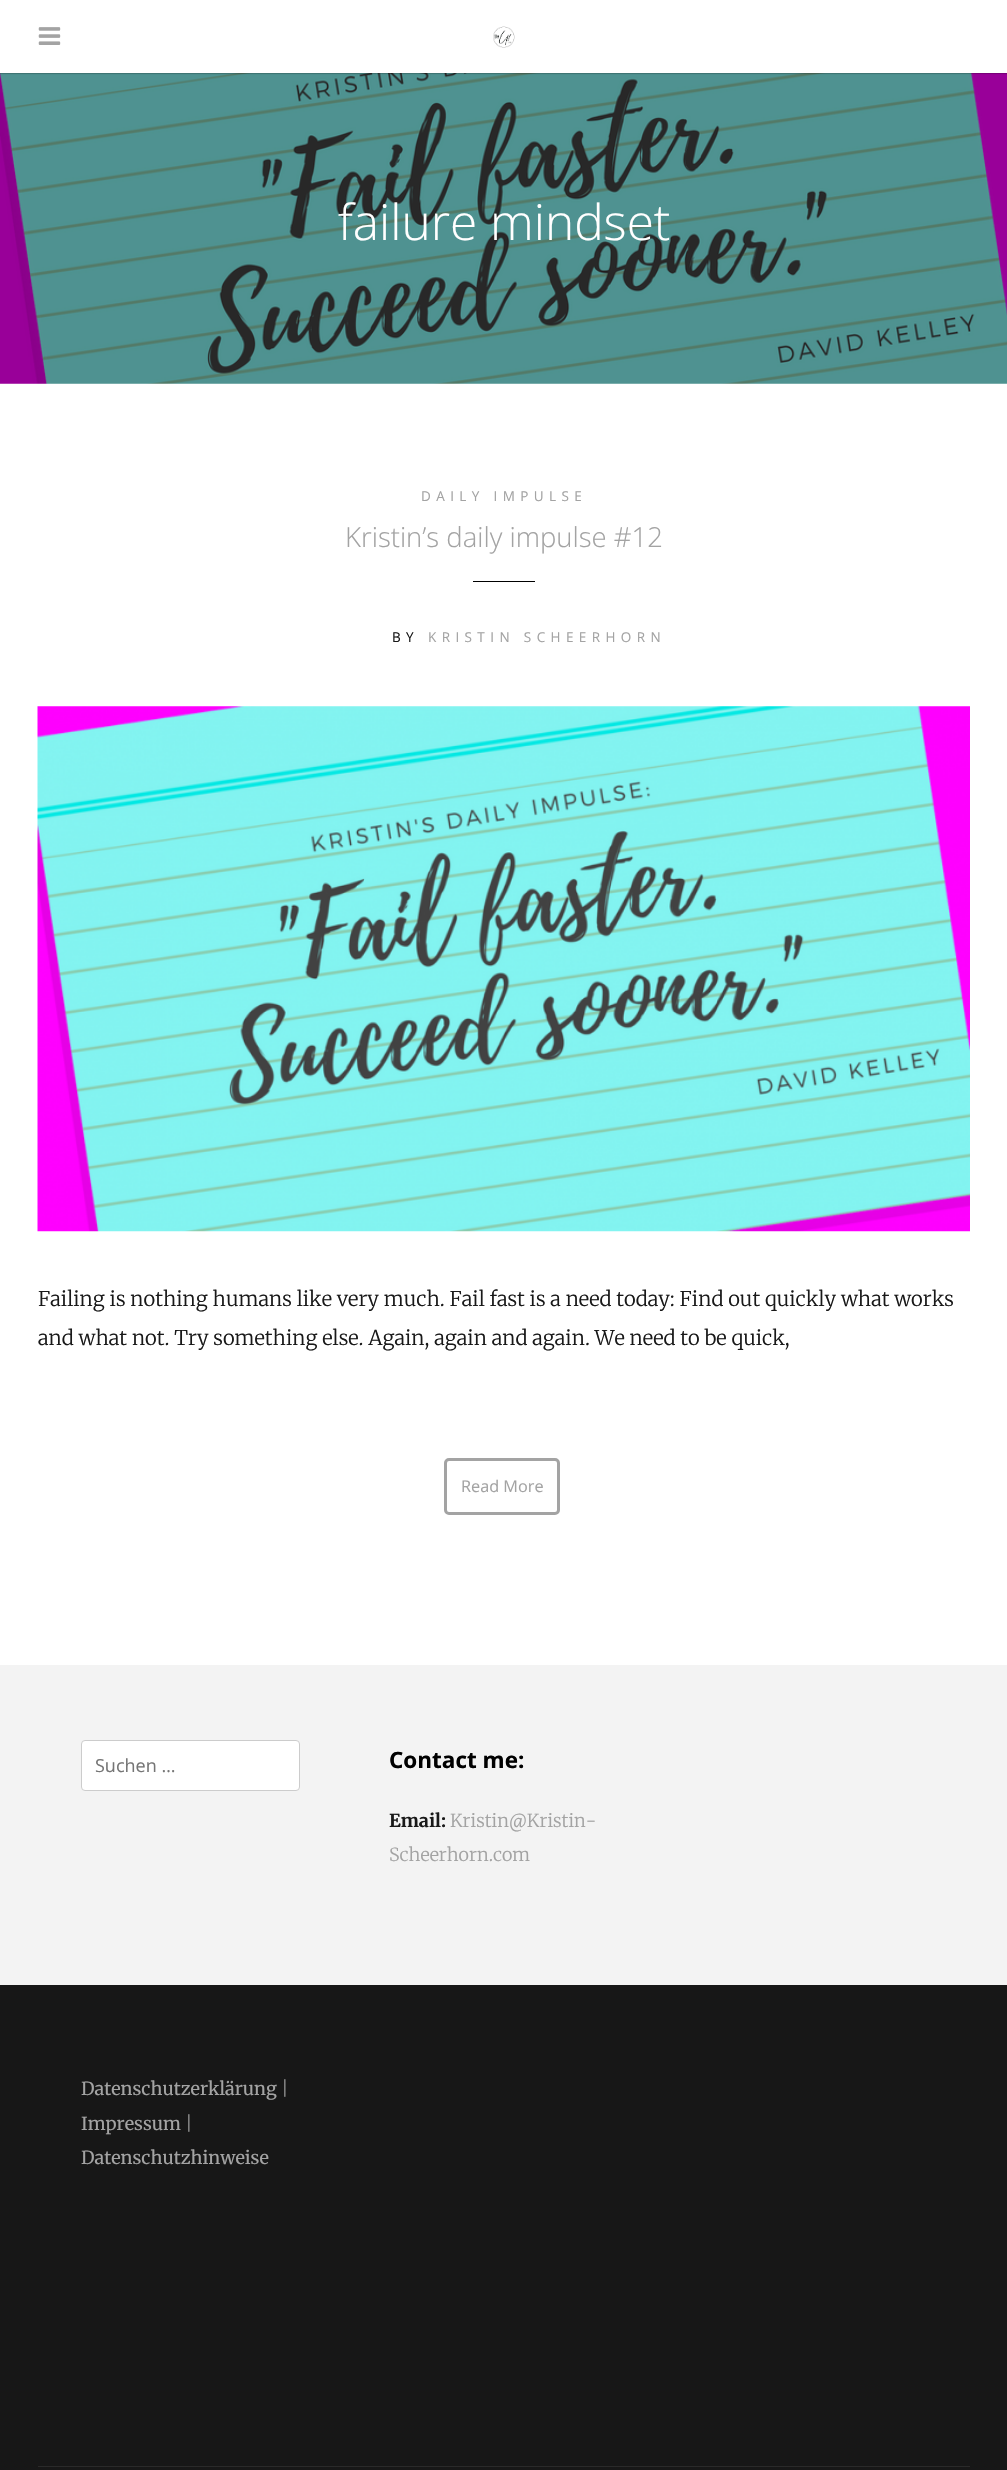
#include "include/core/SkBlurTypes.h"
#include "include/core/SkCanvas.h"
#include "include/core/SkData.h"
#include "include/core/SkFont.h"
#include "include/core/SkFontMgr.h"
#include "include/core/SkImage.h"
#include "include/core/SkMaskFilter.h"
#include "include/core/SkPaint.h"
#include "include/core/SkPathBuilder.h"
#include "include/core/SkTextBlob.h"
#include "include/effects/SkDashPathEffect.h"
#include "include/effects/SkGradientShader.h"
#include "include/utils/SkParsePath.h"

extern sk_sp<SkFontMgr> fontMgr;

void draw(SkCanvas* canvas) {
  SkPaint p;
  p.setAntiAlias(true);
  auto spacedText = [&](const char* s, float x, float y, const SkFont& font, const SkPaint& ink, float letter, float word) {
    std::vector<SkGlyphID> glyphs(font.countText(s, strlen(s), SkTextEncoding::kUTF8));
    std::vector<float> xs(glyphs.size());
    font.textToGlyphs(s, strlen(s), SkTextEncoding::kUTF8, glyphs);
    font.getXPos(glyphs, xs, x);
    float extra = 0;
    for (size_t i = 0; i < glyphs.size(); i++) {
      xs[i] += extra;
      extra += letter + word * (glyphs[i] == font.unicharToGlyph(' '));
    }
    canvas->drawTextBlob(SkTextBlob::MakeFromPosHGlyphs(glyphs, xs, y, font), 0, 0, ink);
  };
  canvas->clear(SK_ColorWHITE);
  canvas->drawImageRect(SkImages::DeferredFromEncodedData(SkData::MakeFromFileName("images/3.png")), SkRect::MakeLTRB(0, 73, 1007, 384), SkSamplingOptions());
  p.setColor(SkColorSetARGB(51, 0, 0, 0));
  p.setMaskFilter(SkMaskFilter::MakeBlur(kNormal_SkBlurStyle, 0.5f));
  canvas->drawRect(SkRect::MakeLTRB(0, 1, 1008, 74), p);
  p.setMaskFilter(nullptr);
  p.setColor(SK_ColorWHITE);
  canvas->drawRect(SkRect::MakeLTRB(0, 0, 1007, 73), p);
  canvas->drawImageRect(SkImages::DeferredFromEncodedData(SkData::MakeFromFileName("images/1.png")), SkRect::MakeLTRB(38, 27, 61, 45), SkSamplingOptions());
  canvas->drawImageRect(SkImages::DeferredFromEncodedData(SkData::MakeFromFileName("images/2.png")), SkRect::MakeLTRB(493, 26, 515, 48), SkSamplingOptions());
  p.setColor(SK_ColorBLACK);
  canvas->drawRect(SkRect::MakeLTRB(473, 581, 535, 582), p);
  canvas->drawImageRect(SkImages::DeferredFromEncodedData(SkData::MakeFromFileName("images/4.png")), SkRect::MakeLTRB(37, 706, 970, 1232), SkSamplingOptions());
  p.setStyle(SkPaint::kStroke_Style);
  p.setStrokeWidth(3);
  p.setColor(SkColorSetRGB(163, 163, 163));
  canvas->drawRoundRect(SkRect::MakeLTRB(445.5f, 1459.5f, 558.5f, 1513.5f), 3.5f, 3.5f, p);
  p.setStyle(SkPaint::kFill_Style);
  p.setColor(SkColorSetRGB(243, 243, 243));
  canvas->drawRect(SkRect::MakeLTRB(0, 1665, 1007, 1985), p);
  p.setColor(SK_ColorWHITE);
  canvas->drawRoundRect(SkRect::MakeLTRB(81.5f, 1740.5f, 299.5f, 1790.5f), 3.5f, 3.5f, p);
  p.setStyle(SkPaint::kStroke_Style);
  p.setStrokeWidth(1);
  p.setColor(SkColorSetRGB(204, 204, 204));
  canvas->drawRoundRect(SkRect::MakeLTRB(81.5f, 1740.5f, 299.5f, 1790.5f), 3.5f, 3.5f, p);
  p.setStyle(SkPaint::kFill_Style);
  p.setColor(SkColorSetRGB(23, 23, 23));
  canvas->drawRect(SkRect::MakeLTRB(0, 1985, 1007, 2470), p);
  p.setColor(SkColorSetRGB(42, 42, 42));
  canvas->drawRect(SkRect::MakeLTRB(38, 2466, 970, 2467), p);
  SkFont font1(fontMgr->matchFamilyStyle("Open Sans", SkFontStyle(300, SkFontStyle::kNormal_Width, SkFontStyle::kUpright_Slant)), 49.5f);
  font1.setSubpixel(true);
  p.setColor(SK_ColorWHITE);
  canvas->drawString("failure mindset", 338, 240, font1, p);
  SkFont font2(fontMgr->matchFamilyStyle("Open Sans", SkFontStyle::Normal()), 13.5f);
  font2.setSubpixel(true);
  p.setColor(SkColorSetRGB(163, 163, 163));
  spacedText("DAILY IMPULSE", 421, 501, font2, p, 5.4f, 0);
  SkFont font3(fontMgr->matchFamilyStyle("Open Sans", SkFontStyle(300, SkFontStyle::kNormal_Width, SkFontStyle::kUpright_Slant)), 27.5f);
  font3.setSubpixel(true);
  canvas->drawString("Kristin’s daily impulse #12", 345, 547, font3, p);
  p.setColor(SkColorSetRGB(25, 25, 25));
  spacedText("BY", 392, 642, font2, p, 5.4f, 0);
  p.setColor(SkColorSetRGB(163, 163, 163));
  spacedText("KRISTIN SCHEERHORN", 428, 642, font2, p, 5.4f, 0);
  SkFont font4(fontMgr->matchFamilyStyle("Merriweather", SkFontStyle(300, SkFontStyle::kNormal_Width, SkFontStyle::kUpright_Slant)), 20.25f);
  font4.setSubpixel(true);
  p.setColor(SkColorSetRGB(25, 25, 25));
  canvas->drawString("Failing is nothing humans like very much. Fail fast is a need today: Find out quickly what works", 38, 1306, font4, p);
  canvas->drawString("and what not. Try something else. Again, again and again. We need to be quick,", 38, 1345, font4, p);
  SkFont font5(fontMgr->matchFamilyStyle("Open Sans", SkFontStyle::Normal()), 16.25f);
  font5.setSubpixel(true);
  p.setColor(SkColorSetRGB(163, 163, 163));
  canvas->drawString("Read More", 461, 1492, font5, p);
  SkFont font6(fontMgr->matchFamilyStyle("Open Sans", SkFontStyle::Normal()), 18);
  font6.setSubpixel(true);
  p.setColor(SkColorSetRGB(117, 117, 117));
  canvas->drawString("Suchen …", 95, 1772, font6, p);
  SkFont font7(fontMgr->matchFamilyStyle("Open Sans", SkFontStyle::Bold()), 22.5f);
  font7.setSubpixel(true);
  p.setColor(SK_ColorBLACK);
  canvas->drawString("Contact me:", 389, 1768, font7, p);
  SkFont font8(fontMgr->matchFamilyStyle("Merriweather", SkFontStyle::Bold()), 18);
  font8.setSubpixel(true);
  p.setColor(SkColorSetRGB(25, 25, 25));
  canvas->drawString("Email:", 389, 1827, font8, p);
  SkFont font9(fontMgr->matchFamilyStyle("Merriweather", SkFontStyle(300, SkFontStyle::kNormal_Width, SkFontStyle::kUpright_Slant)), 18);
  font9.setSubpixel(true);
  p.setColor(SkColorSetRGB(163, 163, 163));
  canvas->drawString("Kristin@Kristin-", 450, 1827, font9, p);
  canvas->drawString("Scheerhorn.com", 389, 1861, font9, p);
  SkFont font10(fontMgr->matchFamilyStyle("Merriweather", SkFontStyle::Normal()), 18);
  font10.setSubpixel(true);
  canvas->drawString("Datenschutzerklärung", 81, 2095, font10, p);
  p.setColor(SkColorSetRGB(139, 139, 139));
  canvas->drawString("|", 281, 2095, font9, p);
  p.setColor(SkColorSetRGB(163, 163, 163));
  canvas->drawString("Impressum", 81, 2130, font10, p);
  p.setColor(SkColorSetRGB(139, 139, 139));
  canvas->drawString("|", 185, 2130, font9, p);
  p.setColor(SkColorSetRGB(163, 163, 163));
  canvas->drawString("Datenschutzhinweise", 81, 2164, font10, p);
}
